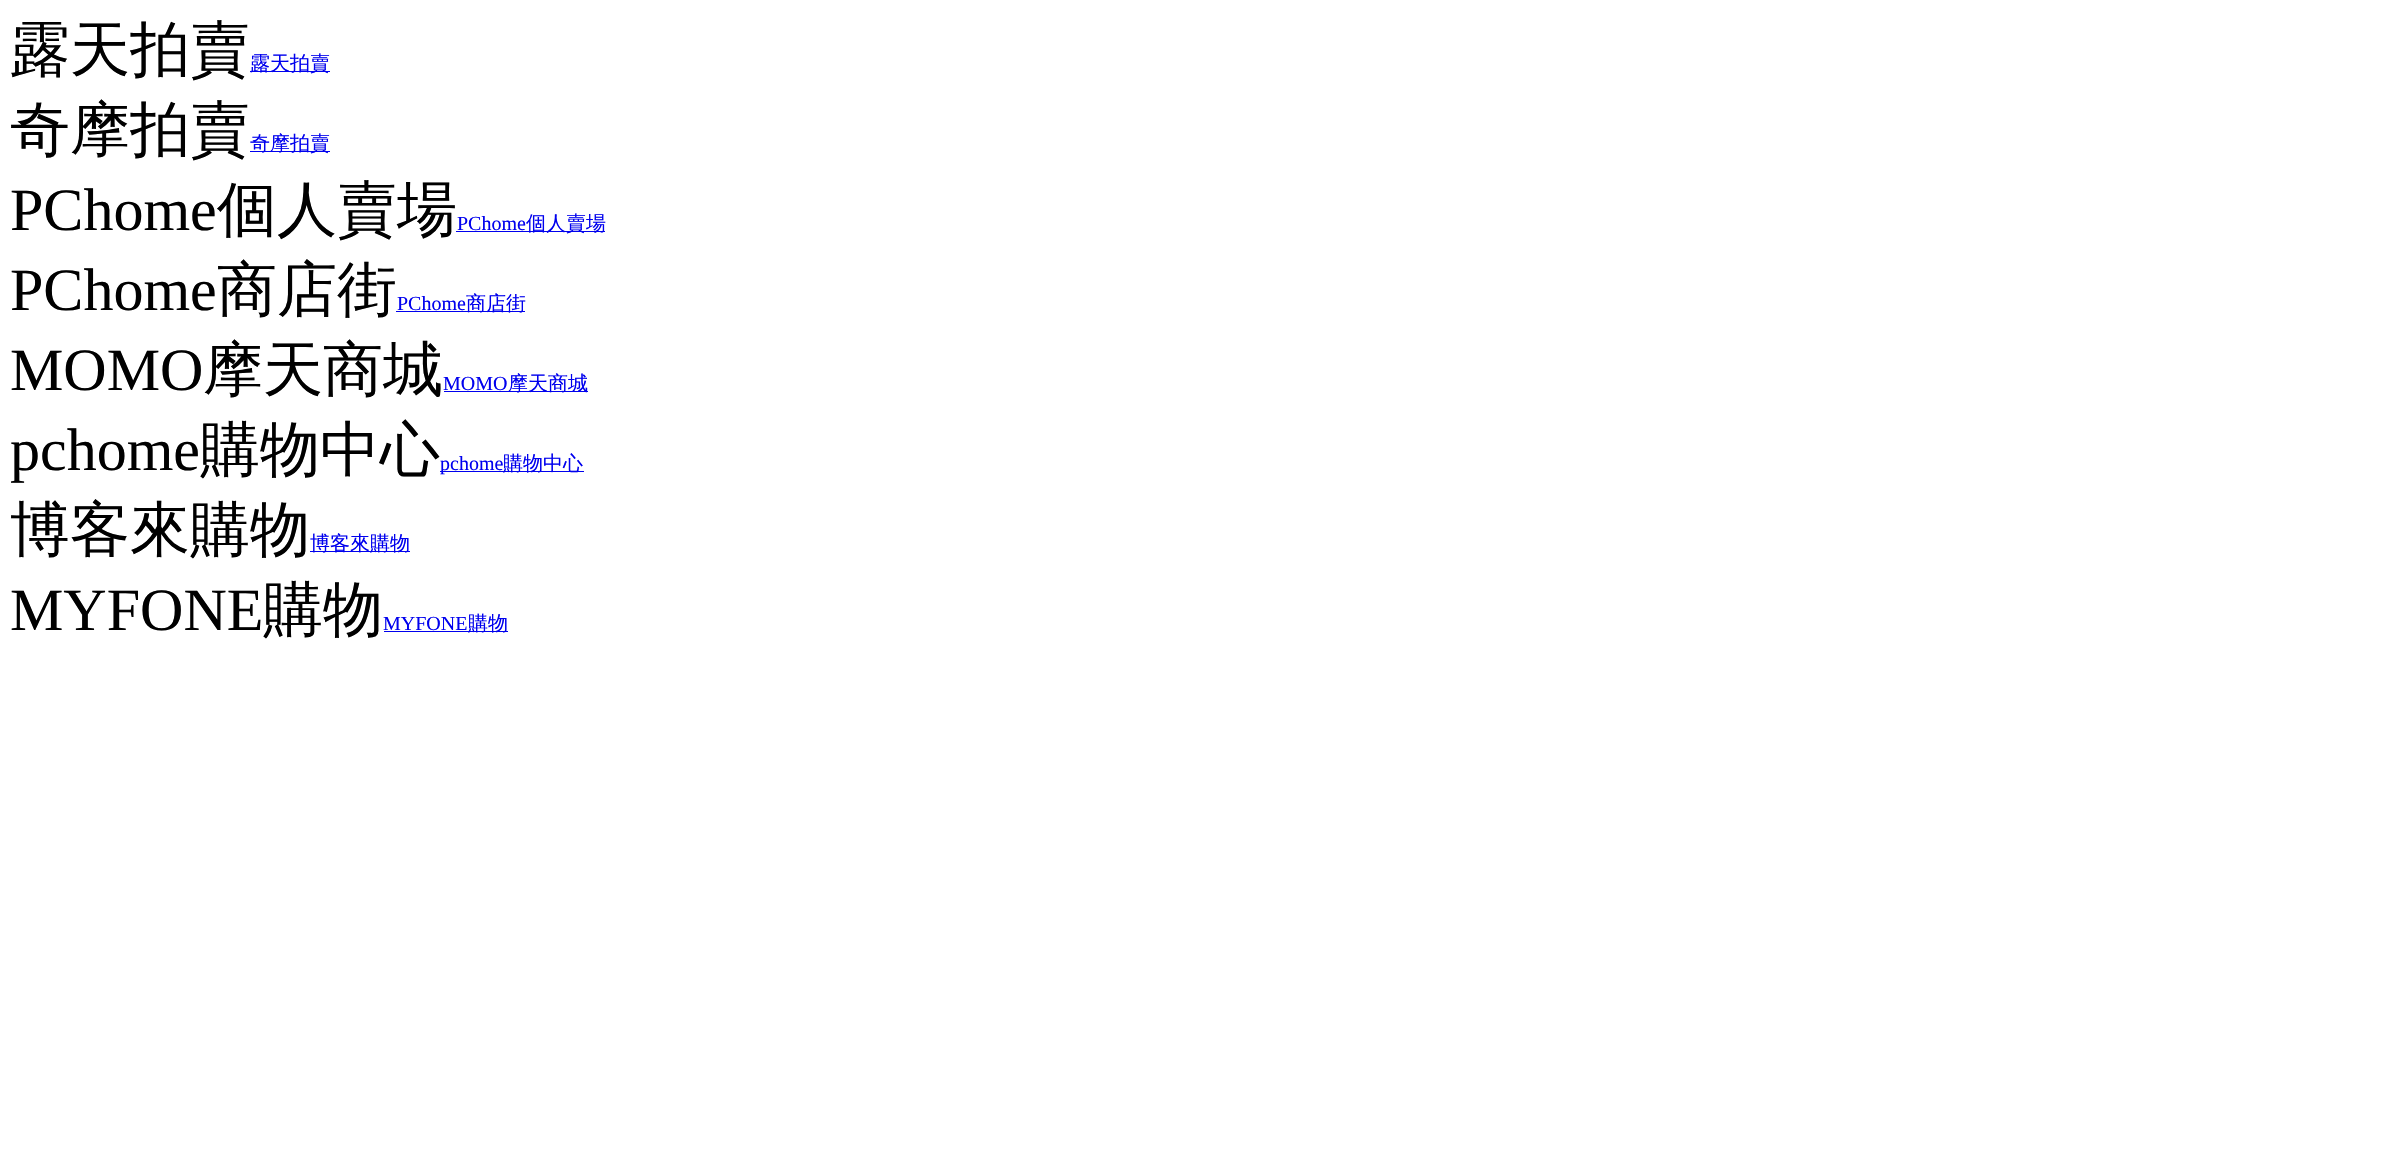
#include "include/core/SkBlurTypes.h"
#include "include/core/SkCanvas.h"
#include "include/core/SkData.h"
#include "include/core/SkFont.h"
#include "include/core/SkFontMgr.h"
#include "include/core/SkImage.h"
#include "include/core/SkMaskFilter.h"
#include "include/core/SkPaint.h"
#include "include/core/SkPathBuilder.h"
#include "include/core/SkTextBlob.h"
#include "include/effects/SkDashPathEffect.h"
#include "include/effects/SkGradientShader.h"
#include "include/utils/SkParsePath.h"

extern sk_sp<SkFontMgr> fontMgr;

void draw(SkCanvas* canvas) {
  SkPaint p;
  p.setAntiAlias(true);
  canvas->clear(SK_ColorWHITE);
  p.setColor(SkColorSetRGB(0, 0, 238));
  canvas->drawRect(SkRect::MakeLTRB(250, 71, 330, 72), p);
  canvas->drawRect(SkRect::MakeLTRB(250, 151, 330, 152), p);
  canvas->drawRect(SkRect::MakeLTRB(456, 231, 605, 232), p);
  canvas->drawRect(SkRect::MakeLTRB(396, 311, 525, 312), p);
  canvas->drawRect(SkRect::MakeLTRB(444, 391, 588, 392), p);
  canvas->drawRect(SkRect::MakeLTRB(440, 471, 584, 472), p);
  canvas->drawRect(SkRect::MakeLTRB(310, 551, 410, 552), p);
  canvas->drawRect(SkRect::MakeLTRB(384, 631, 508, 632), p);
  SkFont font1(fontMgr->matchFamilyStyle("WenQuanYi Zen Hei", SkFontStyle(500, SkFontStyle::kNormal_Width, SkFontStyle::kUpright_Slant)), 60);
  font1.setSubpixel(true);
  p.setColor(SK_ColorBLACK);
  canvas->drawString("露天拍賣", 10, 70, font1, p);
  SkFont font2(fontMgr->matchFamilyStyle("WenQuanYi Zen Hei", SkFontStyle(500, SkFontStyle::kNormal_Width, SkFontStyle::kUpright_Slant)), 20);
  font2.setSubpixel(true);
  p.setColor(SkColorSetRGB(0, 0, 238));
  canvas->drawString("露天拍賣", 250, 70, font2, p);
  p.setColor(SK_ColorBLACK);
  canvas->drawString("奇摩拍賣", 10, 150, font1, p);
  p.setColor(SkColorSetRGB(0, 0, 238));
  canvas->drawString("奇摩拍賣", 250, 150, font2, p);
  SkFont font3(fontMgr->matchFamilyStyle("Liberation Serif", SkFontStyle::Normal()), 60);
  font3.setSubpixel(true);
  p.setColor(SK_ColorBLACK);
  canvas->drawString("PChome", 10, 230, font3, p);
  canvas->drawString("個人賣場", 217, 230, font1, p);
  SkFont font4(fontMgr->matchFamilyStyle("Liberation Serif", SkFontStyle::Normal()), 20);
  font4.setSubpixel(true);
  p.setColor(SkColorSetRGB(0, 0, 238));
  canvas->drawString("PChome", 457, 230, font4, p);
  canvas->drawString("個人賣場", 526, 230, font2, p);
  p.setColor(SK_ColorBLACK);
  canvas->drawString("PChome", 10, 310, font3, p);
  canvas->drawString("商店街", 217, 310, font1, p);
  p.setColor(SkColorSetRGB(0, 0, 238));
  canvas->drawString("PChome", 397, 310, font4, p);
  canvas->drawString("商店街", 466, 310, font2, p);
  p.setColor(SK_ColorBLACK);
  canvas->drawString("MOMO", 10, 390, font3, p);
  canvas->drawString("摩天商城", 203, 390, font1, p);
  p.setColor(SkColorSetRGB(0, 0, 238));
  canvas->drawString("MOMO", 443, 390, font4, p);
  canvas->drawString("摩天商城", 508, 390, font2, p);
  p.setColor(SK_ColorBLACK);
  canvas->drawString("pchome", 10, 470, font3, p);
  canvas->drawString("購物中心", 200, 470, font1, p);
  p.setColor(SkColorSetRGB(0, 0, 238));
  canvas->drawString("pchome", 440, 470, font4, p);
  canvas->drawString("購物中心", 503, 470, font2, p);
  p.setColor(SK_ColorBLACK);
  canvas->drawString("博客來購物", 10, 550, font1, p);
  p.setColor(SkColorSetRGB(0, 0, 238));
  canvas->drawString("博客來購物", 310, 550, font2, p);
  p.setColor(SK_ColorBLACK);
  canvas->drawString("MYFONE", 10, 630, font3, p);
  canvas->drawString("購物", 263, 630, font1, p);
  p.setColor(SkColorSetRGB(0, 0, 238));
  canvas->drawString("MYFONE", 383, 630, font4, p);
  canvas->drawString("購物", 468, 630, font2, p);
}
